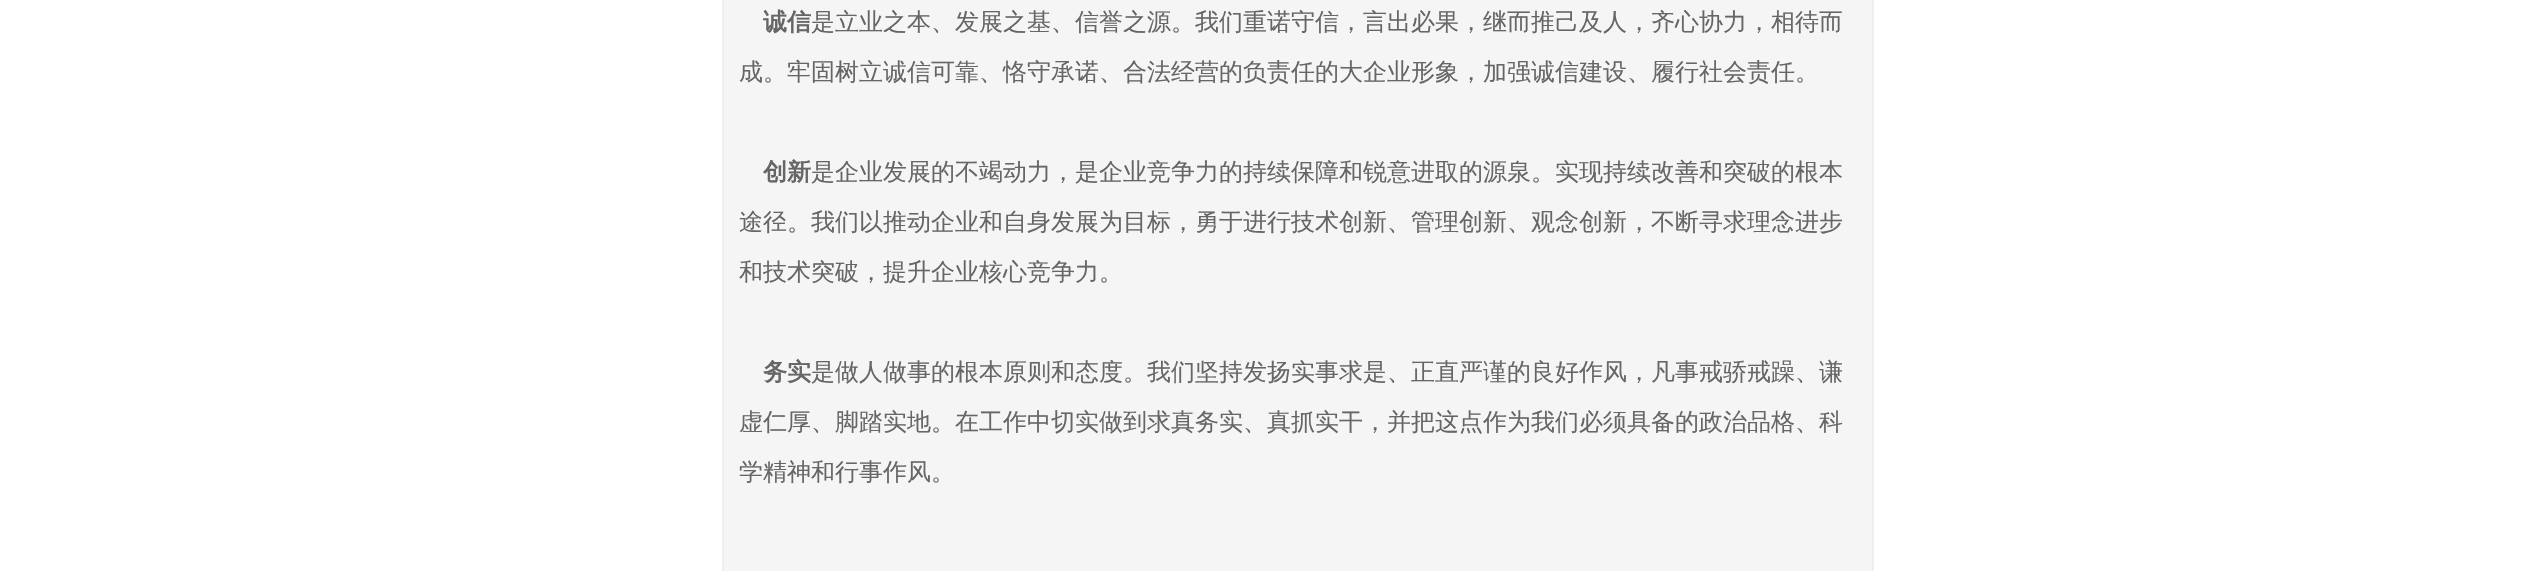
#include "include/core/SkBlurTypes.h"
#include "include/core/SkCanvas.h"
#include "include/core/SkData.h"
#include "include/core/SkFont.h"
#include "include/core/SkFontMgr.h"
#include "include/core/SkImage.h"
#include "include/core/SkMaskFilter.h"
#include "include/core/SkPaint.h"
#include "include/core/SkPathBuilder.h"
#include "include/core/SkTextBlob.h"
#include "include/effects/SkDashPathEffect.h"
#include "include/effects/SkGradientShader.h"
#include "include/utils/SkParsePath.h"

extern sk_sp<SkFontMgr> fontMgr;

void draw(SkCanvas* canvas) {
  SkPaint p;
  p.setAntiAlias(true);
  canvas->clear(SK_ColorWHITE);
  p.setStyle(SkPaint::kStroke_Style);
  p.setStrokeWidth(2);
  p.setColor(SkColorSetRGB(239, 239, 240));
  canvas->drawRect(SkRect::MakeLTRB(723, -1, 1873, 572), p);
  p.setStyle(SkPaint::kFill_Style);
  p.setColor(SkColorSetRGB(245, 245, 245));
  canvas->drawRect(SkRect::MakeLTRB(724, 0, 1872, 571), p);
  SkFont font1(fontMgr->matchFamilyStyle("WenQuanYi Zen Hei", SkFontStyle::Bold()), 24);
  font1.setSubpixel(true);
  p.setColor(SkColorSetRGB(102, 102, 102));
  canvas->drawString("诚信", 763, 30, font1, p);
  SkFont font2(fontMgr->matchFamilyStyle("WenQuanYi Zen Hei", SkFontStyle(500, SkFontStyle::kNormal_Width, SkFontStyle::kUpright_Slant)), 24);
  font2.setSubpixel(true);
  canvas->drawString("是立业之本、发展之基、信誉之源。我们重诺守信，言出必果，继而推己及人，齐心协力，相待而", 811, 30, font2, p);
  canvas->drawString("成。牢固树立诚信可靠、恪守承诺、合法经营的负责任的大企业形象，加强诚信建设、履行社会责任。", 739, 80, font2, p);
  canvas->drawString("创新", 763, 180, font1, p);
  canvas->drawString("是企业发展的不竭动力，是企业竞争力的持续保障和锐意进取的源泉。实现持续改善和突破的根本", 811, 180, font2, p);
  canvas->drawString("途径。我们以推动企业和自身发展为目标，勇于进行技术创新、管理创新、观念创新，不断寻求理念进步", 739, 230, font2, p);
  canvas->drawString("和技术突破，提升企业核心竞争力。", 739, 280, font2, p);
  canvas->drawString("务实", 763, 380, font1, p);
  canvas->drawString("是做人做事的根本原则和态度。我们坚持发扬实事求是、正直严谨的良好作风，凡事戒骄戒躁、谦", 811, 380, font2, p);
  canvas->drawString("虚仁厚、脚踏实地。在工作中切实做到求真务实、真抓实干，并把这点作为我们必须具备的政治品格、科", 739, 430, font2, p);
  canvas->drawString("学精神和行事作风。", 739, 480, font2, p);
}
